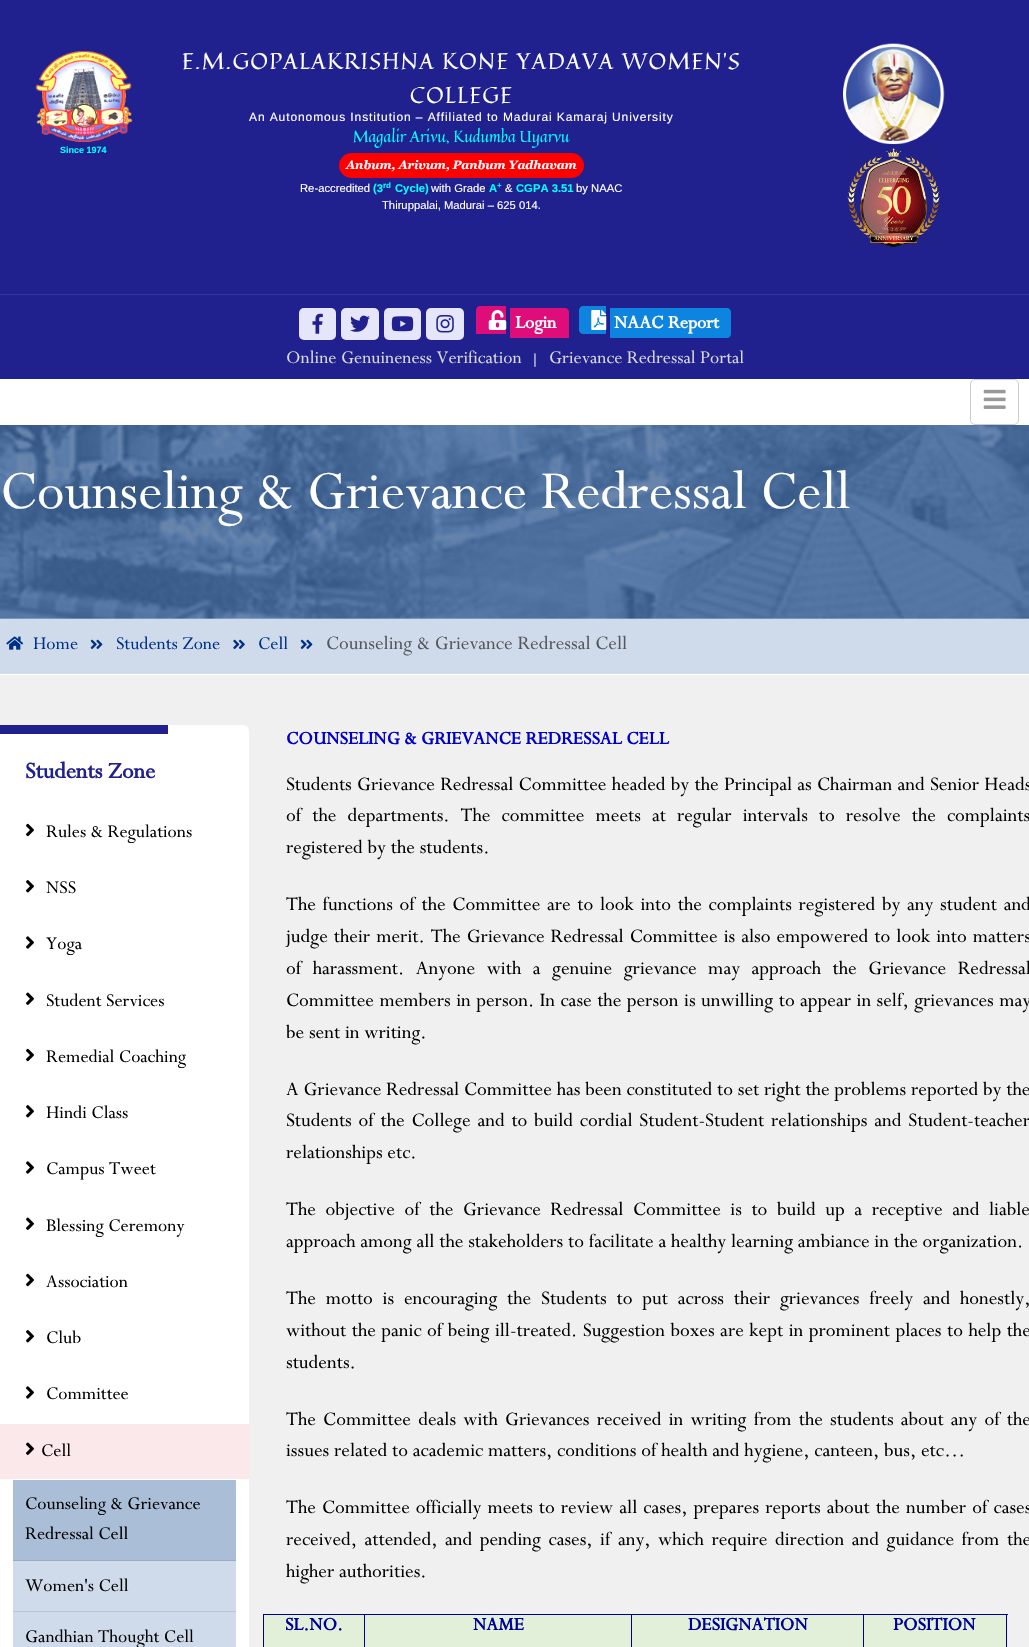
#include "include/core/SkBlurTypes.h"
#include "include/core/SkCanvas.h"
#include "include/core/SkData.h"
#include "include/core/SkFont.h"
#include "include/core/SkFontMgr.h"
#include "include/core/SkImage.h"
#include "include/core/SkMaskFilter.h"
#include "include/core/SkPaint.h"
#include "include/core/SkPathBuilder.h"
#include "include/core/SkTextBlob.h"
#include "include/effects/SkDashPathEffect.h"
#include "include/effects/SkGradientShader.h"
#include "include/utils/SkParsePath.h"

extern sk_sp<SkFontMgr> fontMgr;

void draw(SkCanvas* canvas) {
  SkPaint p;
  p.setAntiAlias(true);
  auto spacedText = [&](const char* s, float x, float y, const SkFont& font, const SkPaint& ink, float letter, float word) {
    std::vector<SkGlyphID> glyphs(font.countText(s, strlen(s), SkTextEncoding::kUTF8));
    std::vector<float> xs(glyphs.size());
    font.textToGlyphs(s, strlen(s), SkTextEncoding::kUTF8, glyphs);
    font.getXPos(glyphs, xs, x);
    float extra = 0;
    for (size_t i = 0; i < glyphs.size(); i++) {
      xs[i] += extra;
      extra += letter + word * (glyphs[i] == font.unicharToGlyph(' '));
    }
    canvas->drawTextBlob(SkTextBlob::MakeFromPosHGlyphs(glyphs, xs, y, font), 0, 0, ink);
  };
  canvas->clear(SK_ColorWHITE);
  p.setColor(SkColorSetRGB(32, 32, 143));
  canvas->drawRect(SkRect::MakeLTRB(0, 0, 1029, 379), p);
  canvas->drawImageRect(SkImages::DeferredFromEncodedData(SkData::MakeFromFileName("images/1.png")), SkRect::MakeLTRB(35, 51, 133, 142), SkSamplingOptions());
  p.setColor(SkColorSetRGB(255, 0, 0));
  canvas->drawRoundRect(SkRect::MakeLTRB(339, 153, 584, 178), 12.5f, 12.5f, p);
  canvas->drawImageRect(SkImages::DeferredFromEncodedData(SkData::MakeFromFileName("images/2.png")), SkRect::MakeLTRB(843, 43, 945, 145), SkSamplingOptions());
  canvas->drawImageRect(SkImages::DeferredFromEncodedData(SkData::MakeFromFileName("images/3.png")), SkRect::MakeLTRB(847, 144, 940, 248), SkSamplingOptions());
  p.setColor(SkColorSetRGB(54, 54, 154));
  canvas->drawRect(SkRect::MakeLTRB(0, 294, 1029, 295), p);
  p.setColor(SkColorSetRGB(230, 230, 250));
  canvas->drawRoundRect(SkRect::MakeLTRB(299, 308, 336, 340), 5, 5, p);
  canvas->drawImageRect(SkImages::DeferredFromEncodedData(SkData::MakeFromFileName("images/4.png")), SkRect::MakeLTRB(312, 313, 323, 334), SkSamplingOptions());
  canvas->drawRoundRect(SkRect::MakeLTRB(341, 308, 379, 340), 5, 5, p);
  canvas->drawImageRect(SkImages::DeferredFromEncodedData(SkData::MakeFromFileName("images/5.png")), SkRect::MakeLTRB(350, 315, 370, 332), SkSamplingOptions());
  canvas->drawRoundRect(SkRect::MakeLTRB(384, 308, 421, 340), 5, 5, p);
  canvas->drawImageRect(SkImages::DeferredFromEncodedData(SkData::MakeFromFileName("images/6.png")), SkRect::MakeLTRB(391, 316, 414, 332), SkSamplingOptions());
  canvas->drawRoundRect(SkRect::MakeLTRB(426, 308, 464, 340), 5, 5, p);
  canvas->drawImageRect(SkImages::DeferredFromEncodedData(SkData::MakeFromFileName("images/7.png")), SkRect::MakeLTRB(436, 315, 454, 333), SkSamplingOptions());
  p.setColor(SkColorSetRGB(223, 13, 122));
  canvas->drawPath(SkPathBuilder().moveTo(480, 306).lineTo(506, 306).lineTo(506, 334).lineTo(476, 334).lineTo(476, 310).cubicTo(476, 308, 478, 306, 480, 306).close().detach(), p);
  canvas->drawPath(SkPathBuilder().moveTo(510, 308).lineTo(565, 308).cubicTo(567, 308, 569, 310, 569, 312).lineTo(569, 338).lineTo(510, 338).close().detach(), p);
  canvas->drawImageRect(SkImages::DeferredFromEncodedData(SkData::MakeFromFileName("images/8.png")), SkRect::MakeLTRB(488, 310, 507, 330), SkSamplingOptions());
  p.setColor(SkColorSetRGB(13, 132, 223));
  canvas->drawPath(SkPathBuilder().moveTo(583, 306).lineTo(606, 306).lineTo(606, 334).lineTo(583, 334).cubicTo(581, 334, 579, 332, 579, 330).lineTo(579, 310).cubicTo(579, 308, 581, 306, 583, 306).close().detach(), p);
  canvas->drawPath(SkPathBuilder().moveTo(610, 308).lineTo(727, 308).cubicTo(729, 308, 731, 310, 731, 312).lineTo(731, 334).cubicTo(731, 336, 729, 338, 727, 338).lineTo(610, 338).close().detach(), p);
  canvas->drawImageRect(SkImages::DeferredFromEncodedData(SkData::MakeFromFileName("images/9.png")), SkRect::MakeLTRB(591, 310, 607, 330), SkSamplingOptions());
  p.setStyle(SkPaint::kStroke_Style);
  p.setStrokeWidth(1);
  p.setColor(SkColorSetRGB(204, 204, 204));
  canvas->drawRoundRect(SkRect::MakeLTRB(970.5f, 379.5f, 1018.5f, 424.5f), 4.5f, 4.5f, p);
  canvas->drawImageRect(SkImages::DeferredFromEncodedData(SkData::MakeFromFileName("images/10.png")), SkRect::MakeLTRB(983, 389, 1006, 409), SkSamplingOptions());
  canvas->drawImageRect(SkImages::DeferredFromEncodedData(SkData::MakeFromFileName("images/11.png")), SkRect::MakeLTRB(0, 425, 1029, 619), SkSamplingOptions());
  p.setStyle(SkPaint::kFill_Style);
  p.setColor(SkColorSetRGB(207, 219, 234));
  canvas->drawRect(SkRect::MakeLTRB(0, 619, 1029, 674), p);
  canvas->drawImageRect(SkImages::DeferredFromEncodedData(SkData::MakeFromFileName("images/12.png")), SkRect::MakeLTRB(6, 636, 24, 650), SkSamplingOptions());
  canvas->drawImageRect(SkImages::DeferredFromEncodedData(SkData::MakeFromFileName("images/13.png")), SkRect::MakeLTRB(90, 639, 103, 649), SkSamplingOptions());
  canvas->drawImageRect(SkImages::DeferredFromEncodedData(SkData::MakeFromFileName("images/14.png")), SkRect::MakeLTRB(233, 639, 245, 649), SkSamplingOptions());
  canvas->drawImageRect(SkImages::DeferredFromEncodedData(SkData::MakeFromFileName("images/13.png")), SkRect::MakeLTRB(300, 639, 313, 649), SkSamplingOptions());
  p.setColor(SkColorSetRGB(240, 240, 240));
  canvas->drawRect(SkRect::MakeLTRB(0, 675, 1029, 1647), p);
  p.setColor(SK_ColorWHITE);
  canvas->drawRoundRect(SkRect::MakeLTRB(0, 725, 249, 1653), 6, 6, p);
  p.setColor(SkColorSetRGB(32, 32, 143));
  canvas->drawRect(SkRect::MakeLTRB(0, 725, 168, 734), p);
  canvas->drawImageRect(SkImages::DeferredFromEncodedData(SkData::MakeFromFileName("images/15.png")), SkRect::MakeLTRB(26, 823, 34, 837), SkSamplingOptions());
  canvas->drawImageRect(SkImages::DeferredFromEncodedData(SkData::MakeFromFileName("images/16.png")), SkRect::MakeLTRB(26, 880, 34, 893), SkSamplingOptions());
  canvas->drawImageRect(SkImages::DeferredFromEncodedData(SkData::MakeFromFileName("images/17.png")), SkRect::MakeLTRB(26, 936, 34, 949), SkSamplingOptions());
  canvas->drawImageRect(SkImages::DeferredFromEncodedData(SkData::MakeFromFileName("images/18.png")), SkRect::MakeLTRB(26, 992, 34, 1005), SkSamplingOptions());
  canvas->drawImageRect(SkImages::DeferredFromEncodedData(SkData::MakeFromFileName("images/15.png")), SkRect::MakeLTRB(26, 1048, 34, 1062), SkSamplingOptions());
  canvas->drawImageRect(SkImages::DeferredFromEncodedData(SkData::MakeFromFileName("images/16.png")), SkRect::MakeLTRB(26, 1105, 34, 1118), SkSamplingOptions());
  canvas->drawImageRect(SkImages::DeferredFromEncodedData(SkData::MakeFromFileName("images/17.png")), SkRect::MakeLTRB(26, 1161, 34, 1174), SkSamplingOptions());
  canvas->drawImageRect(SkImages::DeferredFromEncodedData(SkData::MakeFromFileName("images/18.png")), SkRect::MakeLTRB(26, 1217, 34, 1230), SkSamplingOptions());
  canvas->drawImageRect(SkImages::DeferredFromEncodedData(SkData::MakeFromFileName("images/15.png")), SkRect::MakeLTRB(26, 1273, 34, 1287), SkSamplingOptions());
  canvas->drawImageRect(SkImages::DeferredFromEncodedData(SkData::MakeFromFileName("images/16.png")), SkRect::MakeLTRB(26, 1330, 34, 1343), SkSamplingOptions());
  canvas->drawImageRect(SkImages::DeferredFromEncodedData(SkData::MakeFromFileName("images/17.png")), SkRect::MakeLTRB(26, 1386, 34, 1399), SkSamplingOptions());
  p.setColor(SkColorSetRGB(250, 232, 234));
  canvas->drawRect(SkRect::MakeLTRB(0, 1424, 249, 1479), p);
  canvas->drawImageRect(SkImages::DeferredFromEncodedData(SkData::MakeFromFileName("images/19.png")), SkRect::MakeLTRB(26, 1442, 34, 1455), SkSamplingOptions());
  p.setColor(SkColorSetRGB(207, 219, 234));
  canvas->drawRect(SkRect::MakeLTRB(13, 1561, 236, 1647), p);
  p.setColor(SkColorSetRGB(170, 190, 215));
  canvas->drawRect(SkRect::MakeLTRB(13, 1480, 236, 1560), p);
  p.setColor(SkColorSetRGB(153, 171, 194));
  canvas->drawRect(SkRect::MakeLTRB(13, 1560, 236, 1561), p);
  p.setColor(SkColorSetRGB(186, 197, 211));
  canvas->drawRect(SkRect::MakeLTRB(13, 1611, 236, 1612), p);
  p.setColor(SkColorSetRGB(0, 0, 153));
  canvas->drawRect(SkRect::MakeLTRB(263, 1614, 1008, 1615), p);
  canvas->drawRect(SkRect::MakeLTRB(1006, 1614, 1007, 1647), p);
  canvas->drawRect(SkRect::MakeLTRB(263, 1614, 264, 1647), p);
  p.setColor(SkColorSetRGB(226, 239, 217));
  canvas->drawRect(SkRect::MakeLTRB(264, 1615, 364, 1647), p);
  p.setColor(SkColorSetRGB(0, 0, 153));
  canvas->drawRect(SkRect::MakeLTRB(364, 1614, 365, 1647), p);
  p.setColor(SkColorSetRGB(226, 239, 217));
  canvas->drawRect(SkRect::MakeLTRB(365, 1615, 863, 1647), p);
  p.setColor(SkColorSetRGB(0, 0, 153));
  canvas->drawRect(SkRect::MakeLTRB(631, 1614, 632, 1647), p);
  canvas->drawRect(SkRect::MakeLTRB(863, 1614, 864, 1647), p);
  p.setColor(SkColorSetRGB(226, 239, 217));
  canvas->drawRect(SkRect::MakeLTRB(864, 1615, 1006, 1647), p);
  SkFont font1(fontMgr->matchFamilyStyle("Liberation Sans", SkFontStyle::Bold()), 9);
  font1.setSubpixel(true);
  p.setColor(SkColorSetRGB(0, 255, 255));
  canvas->drawString("Since 1974", 60, 153, font1, p);
  SkFont font2(fontMgr->matchFamilyStyle("Quintessential", SkFontStyle::Normal()), 22.5f);
  font2.setSubpixel(true);
  p.setColor(SK_ColorWHITE);
  spacedText("E.M.GOPALAKRISHNA KONE YADAVA WOMEN’S", 182, 69, font2, p, 1.5f, 0);
  spacedText("COLLEGE", 410, 103, font2, p, 1.5f, 0);
  SkFont font3(fontMgr->matchFamilyStyle("Liberation Sans", SkFontStyle::Normal()), 12);
  font3.setSubpixel(true);
  spacedText("An Autonomous Institution – Affiliated to Madurai Kamaraj University", 249, 121, font3, p, 0.9f, 0);
  SkFont font4(fontMgr->matchFamilyStyle("Quintessential", SkFontStyle::Normal()), 15.75f);
  font4.setSubpixel(true);
  p.setColor(SkColorSetRGB(0, 255, 255));
  canvas->drawString("Magalir Arivu, Kudumba Uyarvu", 353, 142, font4, p);
  SkFont font5(fontMgr->matchFamilyStyle("Georgia", SkFontStyle::BoldItalic()), 12);
  font5.setSubpixel(true);
  p.setColor(SK_ColorWHITE);
  canvas->drawString("Anbum, Arivum, Panbum Yadhavam", 346, 169, font5, p);
  SkFont font6(fontMgr->matchFamilyStyle("Liberation Sans", SkFontStyle::Normal()), 11.25f);
  font6.setSubpixel(true);
  canvas->drawString("Re-accredited", 300, 192, font6, p);
  SkFont font7(fontMgr->matchFamilyStyle("Liberation Sans", SkFontStyle::Bold()), 11.25f);
  font7.setSubpixel(true);
  p.setColor(SkColorSetRGB(0, 255, 255));
  canvas->drawString("(3", 373, 192, font7, p);
  SkFont font8(fontMgr->matchFamilyStyle("Liberation Sans", SkFontStyle::Bold()), 8);
  font8.setSubpixel(true);
  canvas->drawString("rd", 383, 188, font8, p);
  canvas->drawString("Cycle)", 395, 192, font7, p);
  p.setColor(SK_ColorWHITE);
  canvas->drawString("with Grade", 431, 192, font6, p);
  p.setColor(SkColorSetRGB(0, 255, 255));
  canvas->drawString("A", 489, 192, font7, p);
  canvas->drawString("+", 497, 188, font8, p);
  p.setColor(SK_ColorWHITE);
  canvas->drawString("&", 505, 192, font6, p);
  p.setColor(SkColorSetRGB(0, 255, 255));
  canvas->drawString("CGPA 3.51", 516, 192, font7, p);
  p.setColor(SK_ColorWHITE);
  canvas->drawString("by NAAC", 576, 192, font6, p);
  canvas->drawString("Thiruppalai, Madurai – 625 014.", 382, 209, font6, p);
  SkFont font9(fontMgr->matchFamilyStyle("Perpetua", SkFontStyle::Bold()), 20);
  font9.setSubpixel(true);
  canvas->drawString("Login", 515, 328, font9, p);
  canvas->drawString("NAAC Report", 614, 328, font9, p);
  SkFont font10(fontMgr->matchFamilyStyle("Perpetua", SkFontStyle::Normal()), 20);
  font10.setSubpixel(true);
  p.setColor(SkColorSetRGB(217, 217, 217));
  canvas->drawString("Online Genuineness Verification", 286, 363, font10, p);
  SkFont font11(fontMgr->matchFamilyStyle("Perpetua", SkFontStyle::Normal()), 16);
  font11.setSubpixel(true);
  p.setColor(SK_ColorWHITE);
  canvas->drawString("|", 531, 363, font11, p);
  p.setColor(SkColorSetRGB(217, 217, 217));
  canvas->drawString("Grievance Redressal Portal", 549, 363, font10, p);
  SkFont font12(fontMgr->matchFamilyStyle("Perpetua", SkFontStyle::Normal()), 60);
  font12.setSubpixel(true);
  p.setColor(SK_ColorWHITE);
  canvas->drawString("Counseling & Grievance Redressal Cell", 0, 508, font12, p);
  p.setColor(SkColorSetRGB(0, 47, 134));
  canvas->drawString("Home", 33, 649, font10, p);
  canvas->drawString("Students Zone", 116, 649, font10, p);
  canvas->drawString("Cell", 258, 649, font10, p);
  SkFont font13(fontMgr->matchFamilyStyle("Perpetua", SkFontStyle::Normal()), 21.25f);
  font13.setSubpixel(true);
  p.setColor(SkColorSetRGB(84, 86, 91));
  canvas->drawString("Counseling & Grievance Redressal Cell", 326, 649, font13, p);
  SkFont font14(fontMgr->matchFamilyStyle("Perpetua", SkFontStyle::Bold()), 25);
  font14.setSubpixel(true);
  p.setColor(SkColorSetRGB(32, 32, 143));
  canvas->drawString("Students Zone", 25, 778, font14, p);
  p.setColor(SK_ColorBLACK);
  canvas->drawString("Rules & Regulations", 46, 837, font10, p);
  canvas->drawString("NSS", 46, 893, font10, p);
  canvas->drawString("Yoga", 46, 949, font10, p);
  canvas->drawString("Student Services", 46, 1006, font10, p);
  canvas->drawString("Remedial Coaching", 46, 1062, font10, p);
  canvas->drawString("Hindi Class", 46, 1118, font10, p);
  canvas->drawString("Campus Tweet", 46, 1174, font10, p);
  canvas->drawString("Blessing Ceremony", 46, 1231, font10, p);
  canvas->drawString("Association", 46, 1287, font10, p);
  canvas->drawString("Club", 46, 1343, font10, p);
  canvas->drawString("Committee", 46, 1399, font10, p);
  canvas->drawString("Cell", 41, 1456, font10, p);
  canvas->drawString("Counseling & Grievance", 25, 1509, font10, p);
  canvas->drawString("Redressal Cell", 25, 1539, font10, p);
  canvas->drawString("Women's Cell", 25, 1591, font10, p);
  canvas->drawString("Gandhian Thought Cell", 25, 1642, font10, p);
  p.setColor(SkColorSetRGB(0, 0, 204));
  canvas->drawString("COUNSELING & GRIEVANCE REDRESSAL CELL", 286, 744, font9, p);
  p.setColor(SK_ColorBLACK);
  spacedText("Students Grievance Redressal Committee headed by the Principal as Chairman and Senior Heads", 286, 790, font13, p, 0, 0.5f);
  spacedText("of the departments. The committee meets at regular intervals to resolve the complaints", 286, 821, font13, p, 0, 6.25f);
  canvas->drawString("registered by the students.", 286, 853, font13, p);
  spacedText("The functions of the Committee are to look into the complaints registered by any student and", 286, 910, font13, p, 0, 1.9f);
  spacedText("judge their merit. The Grievance Redressal Committee is also empowered to look into matters", 286, 942, font13, p, 0, 1.25f);
  spacedText("of harassment. Anyone with a genuine grievance may approach the Grievance Redressal", 286, 974, font13, p, 0, 6.75f);
  spacedText("Committee members in person. In case the person is unwilling to appear in self, grievances may", 286, 1006, font13, p, 0, 0.7f);
  canvas->drawString("be sent in writing.", 286, 1038, font13, p);
  canvas->drawString("A Grievance Redressal Committee has been constituted to set right the problems reported by the", 286, 1095, font13, p);
  spacedText("Students of the College and to build cordial Student-Student relationships and Student-teacher", 286, 1126, font13, p, 0, 2);
  canvas->drawString("relationships etc.", 286, 1158, font13, p);
  spacedText("The objective of the Grievance Redressal Committee is to build up a receptive and liable", 286, 1215, font13, p, 0, 4.75f);
  canvas->drawString("approach among all the stakeholders to facilitate a healthy learning ambiance in the organization.", 286, 1247, font13, p);
  spacedText("The motto is encouraging the Students to put across their grievances freely and honestly,", 286, 1304, font13, p, 0, 5);
  spacedText("without the panic of being ill-treated. Suggestion boxes are kept in prominent places to help the", 286, 1336, font13, p, 0, 0.7f);
  canvas->drawString("students.", 286, 1368, font13, p);
  spacedText("The Committee deals with Grievances received in writing from the students about any of the", 286, 1425, font13, p, 0, 2.4f);
  canvas->drawString("issues related to academic matters, conditions of health and hygiene, canteen, bus, etc…", 286, 1456, font13, p);
  spacedText("The Committee officially meets to review all cases, prepares reports about the number of cases", 286, 1513, font13, p, 0, 1.25f);
  spacedText("received, attended, and pending cases, if any, which require direction and guidance from the", 286, 1545, font13, p, 0, 2.75f);
  canvas->drawString("higher authorities.", 286, 1577, font13, p);
  p.setColor(SkColorSetRGB(0, 0, 153));
  canvas->drawString("SL.NO.", 285, 1630, font9, p);
  canvas->drawString("NAME", 473, 1630, font9, p);
  canvas->drawString("DESIGNATION", 688, 1630, font9, p);
  canvas->drawString("POSITION", 893, 1630, font9, p);
}
